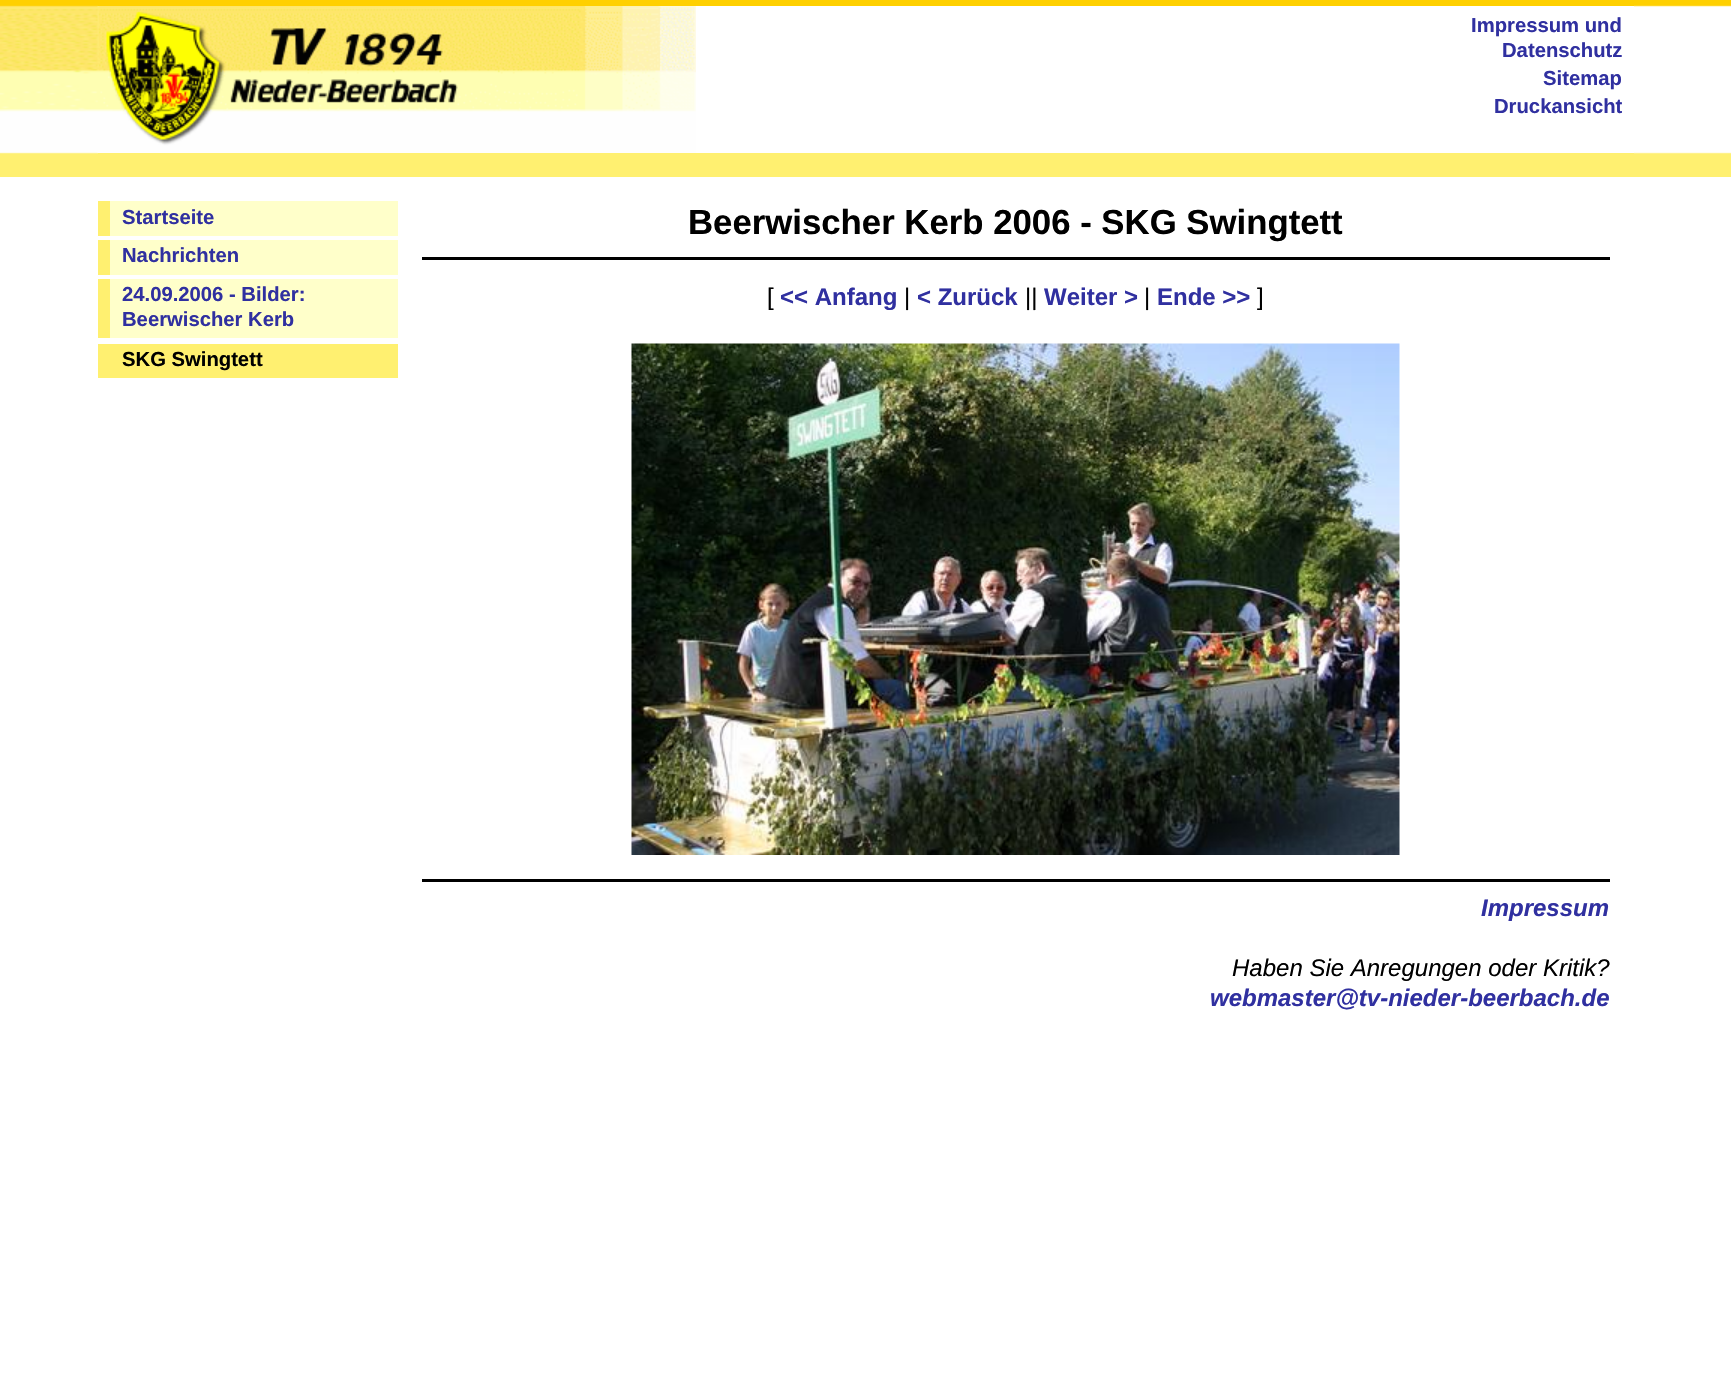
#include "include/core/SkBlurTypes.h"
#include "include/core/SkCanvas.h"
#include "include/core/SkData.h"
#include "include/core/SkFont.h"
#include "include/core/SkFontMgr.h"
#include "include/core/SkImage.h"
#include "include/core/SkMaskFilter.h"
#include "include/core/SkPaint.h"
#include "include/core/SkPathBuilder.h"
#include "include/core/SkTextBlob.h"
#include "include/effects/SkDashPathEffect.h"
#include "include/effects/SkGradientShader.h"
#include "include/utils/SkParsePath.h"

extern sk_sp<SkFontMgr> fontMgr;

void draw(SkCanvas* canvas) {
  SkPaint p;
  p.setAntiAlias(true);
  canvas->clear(SK_ColorWHITE);
  canvas->drawImageRect(SkImages::DeferredFromEncodedData(SkData::MakeFromFileName("images/1.png")), SkRect::MakeLTRB(0, 0, 1731, 177), SkSamplingOptions());
  p.setColor(SK_ColorWHITE);
  canvas->drawRect(SkRect::MakeLTRB(98, 6, 1634, 177), p);
  p.setColor(SkColorSetRGB(255, 208, 0));
  canvas->drawRect(SkRect::MakeLTRB(98, 5, 1634, 6), p);
  p.setColor(SkColorSetRGB(255, 240, 112));
  canvas->drawRect(SkRect::MakeLTRB(98, 153, 1634, 177), p);
  canvas->drawImageRect(SkImages::DeferredFromEncodedData(SkData::MakeFromFileName("images/2.png")), SkRect::MakeLTRB(97, 6, 696, 153), SkSamplingOptions());
  p.setColor(SkColorSetRGB(255, 255, 202));
  canvas->drawRect(SkRect::MakeLTRB(110, 201, 398, 236), p);
  p.setColor(SkColorSetRGB(255, 240, 112));
  canvas->drawRect(SkRect::MakeLTRB(98, 201, 110, 236), p);
  p.setColor(SkColorSetRGB(255, 255, 202));
  canvas->drawRect(SkRect::MakeLTRB(110, 240, 398, 275), p);
  p.setColor(SkColorSetRGB(255, 240, 112));
  canvas->drawRect(SkRect::MakeLTRB(98, 240, 110, 275), p);
  p.setColor(SkColorSetRGB(255, 255, 202));
  canvas->drawRect(SkRect::MakeLTRB(110, 279, 398, 338), p);
  p.setColor(SkColorSetRGB(255, 240, 112));
  canvas->drawRect(SkRect::MakeLTRB(98, 279, 110, 338), p);
  canvas->drawRect(SkRect::MakeLTRB(98, 344, 398, 378), p);
  p.setColor(SK_ColorBLACK);
  canvas->drawRect(SkRect::MakeLTRB(422, 257, 1610, 260), p);
  canvas->drawImageRect(SkImages::DeferredFromEncodedData(SkData::MakeFromFileName("images/3.png")), SkRect::MakeLTRB(631, 343, 1400, 855), SkSamplingOptions());
  canvas->drawRect(SkRect::MakeLTRB(422, 879, 1610, 882), p);
  SkFont font1(fontMgr->matchFamilyStyle("Liberation Sans", SkFontStyle::Bold()), 20.25f);
  font1.setSubpixel(true);
  p.setColor(SkColorSetRGB(48, 48, 160));
  canvas->drawString("Impressum und", 1471, 32, font1, p);
  canvas->drawString("Datenschutz", 1502, 57, font1, p);
  canvas->drawString("Sitemap", 1543, 85, font1, p);
  canvas->drawString("Druckansicht", 1494, 113, font1, p);
  canvas->drawString("Startseite", 122, 224, font1, p);
  canvas->drawString("Nachrichten", 122, 262, font1, p);
  canvas->drawString("24.09.2006 - Bilder:", 122, 301, font1, p);
  canvas->drawString("Beerwischer Kerb", 122, 326, font1, p);
  p.setColor(SK_ColorBLACK);
  canvas->drawString("SKG Swingtett", 122, 366, font1, p);
  SkFont font2(fontMgr->matchFamilyStyle("Liberation Sans", SkFontStyle::Bold()), 34.75f);
  font2.setSubpixel(true);
  canvas->drawString("Beerwischer Kerb 2006 - SKG Swingtett", 688, 234, font2, p);
  SkFont font3(fontMgr->matchFamilyStyle("Liberation Sans", SkFontStyle::Normal()), 24);
  font3.setSubpixel(true);
  canvas->drawString("[", 767, 305, font3, p);
  SkFont font4(fontMgr->matchFamilyStyle("Liberation Sans", SkFontStyle::Bold()), 24);
  font4.setSubpixel(true);
  p.setColor(SkColorSetRGB(48, 48, 160));
  canvas->drawString("<< Anfang", 780, 305, font4, p);
  p.setColor(SK_ColorBLACK);
  canvas->drawString("|", 904, 305, font3, p);
  p.setColor(SkColorSetRGB(48, 48, 160));
  canvas->drawString("< Zurück", 917, 305, font4, p);
  p.setColor(SK_ColorBLACK);
  canvas->drawString("||", 1025, 305, font3, p);
  p.setColor(SkColorSetRGB(48, 48, 160));
  canvas->drawString("Weiter >", 1044, 305, font4, p);
  p.setColor(SK_ColorBLACK);
  canvas->drawString("|", 1144, 305, font3, p);
  p.setColor(SkColorSetRGB(48, 48, 160));
  canvas->drawString("Ende >>", 1157, 305, font4, p);
  p.setColor(SK_ColorBLACK);
  canvas->drawString("]", 1257, 305, font3, p);
  SkFont font5(fontMgr->matchFamilyStyle("Liberation Sans", SkFontStyle::BoldItalic()), 24);
  font5.setSubpixel(true);
  p.setColor(SkColorSetRGB(48, 48, 160));
  canvas->drawString("Impressum", 1481, 916, font5, p);
  SkFont font6(fontMgr->matchFamilyStyle("Liberation Sans", SkFontStyle::Italic()), 24);
  font6.setSubpixel(true);
  p.setColor(SK_ColorBLACK);
  canvas->drawString("Haben Sie Anregungen oder Kritik?", 1232, 976, font6, p);
  p.setColor(SkColorSetRGB(48, 48, 160));
  canvas->drawString("webmaster@tv-nieder-beerbach.de", 1210, 1006, font5, p);
}
